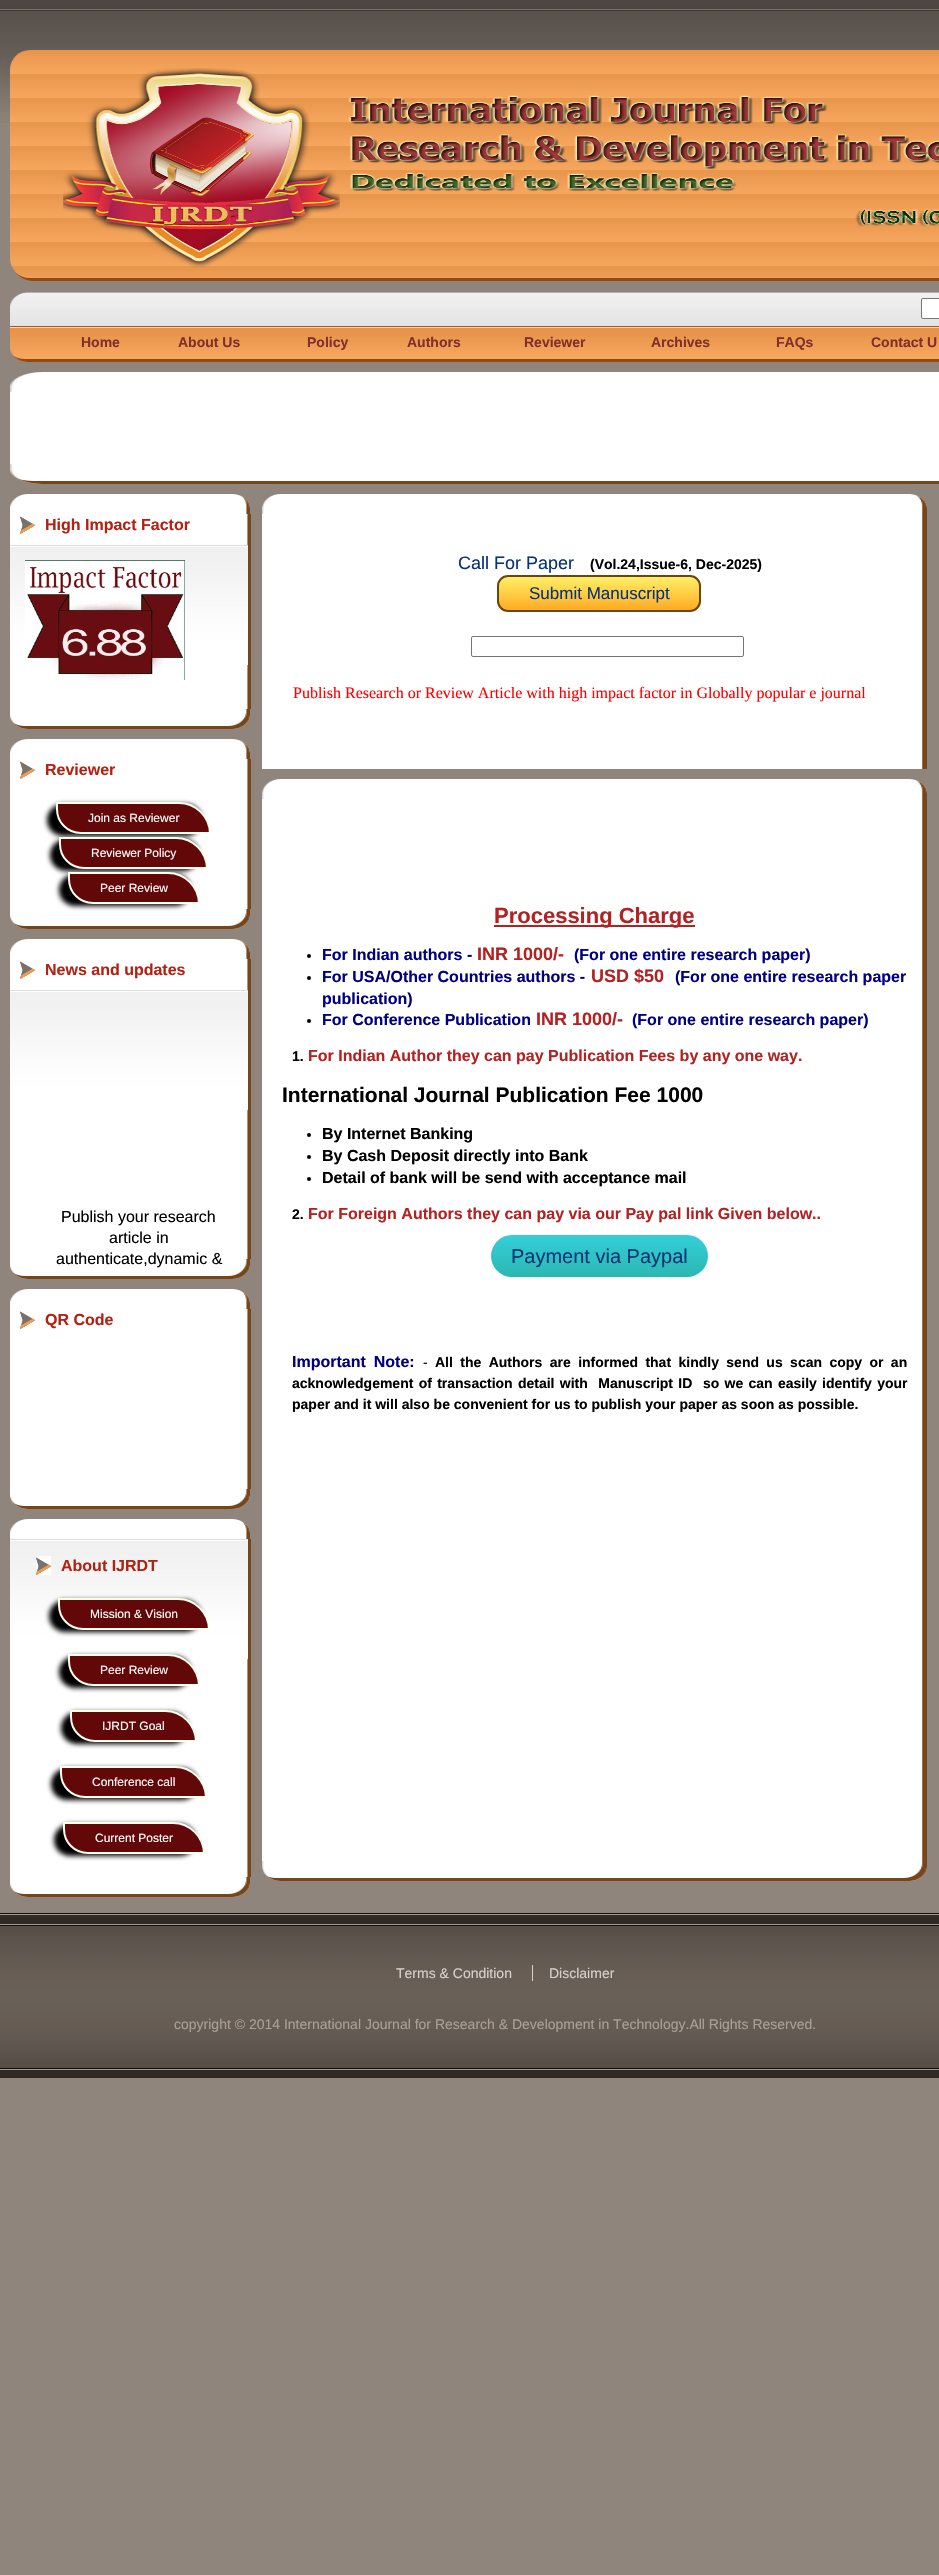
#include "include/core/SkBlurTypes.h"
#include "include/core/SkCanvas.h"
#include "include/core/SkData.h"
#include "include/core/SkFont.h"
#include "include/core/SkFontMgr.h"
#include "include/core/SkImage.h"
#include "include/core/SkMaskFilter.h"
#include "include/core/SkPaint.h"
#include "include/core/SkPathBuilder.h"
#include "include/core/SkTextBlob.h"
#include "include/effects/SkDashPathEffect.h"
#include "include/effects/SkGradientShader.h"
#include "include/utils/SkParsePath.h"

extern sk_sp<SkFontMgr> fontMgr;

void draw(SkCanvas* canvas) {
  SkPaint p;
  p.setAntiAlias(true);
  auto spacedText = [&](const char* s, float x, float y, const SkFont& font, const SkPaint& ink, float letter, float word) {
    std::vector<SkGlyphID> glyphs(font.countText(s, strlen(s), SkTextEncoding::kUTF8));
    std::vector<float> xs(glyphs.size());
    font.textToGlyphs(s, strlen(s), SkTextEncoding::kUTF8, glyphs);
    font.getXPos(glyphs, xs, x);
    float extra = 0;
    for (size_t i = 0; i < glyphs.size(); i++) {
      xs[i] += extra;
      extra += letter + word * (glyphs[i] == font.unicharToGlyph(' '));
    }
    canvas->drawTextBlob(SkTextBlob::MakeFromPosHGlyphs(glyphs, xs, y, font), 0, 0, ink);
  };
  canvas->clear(SkColorSetRGB(144, 133, 124));
  canvas->drawImageRect(SkImages::DeferredFromEncodedData(SkData::MakeFromFileName("images/1.png")), SkRect::MakeLTRB(0, 0, 939, 123), SkSamplingOptions());
  p.setColor(SkColorSetRGB(144, 74, 18));
  canvas->drawPath(SkPathBuilder().moveTo(17, 274).cubicTo(21, 278, 27, 281, 33, 281).lineTo(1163, 281).cubicTo(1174, 281, 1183, 272, 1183, 261).lineTo(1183, 73).cubicTo(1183, 67, 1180, 61, 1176, 57).cubicTo(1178, 61, 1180, 65, 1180, 70).lineTo(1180, 258).cubicTo(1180, 269, 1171, 278, 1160, 278).lineTo(30, 278).cubicTo(25, 278, 21, 276, 17, 274).close().detach(), p);
  canvas->drawImageRect(SkImages::DeferredFromEncodedData(SkData::MakeFromFileName("images/2.png")), SkRect::MakeLTRB(10, 50, 939, 278), SkSamplingOptions());
  canvas->drawImageRect(SkImages::DeferredFromEncodedData(SkData::MakeFromFileName("images/3.png")), SkRect::MakeLTRB(63, 68, 939, 268), SkSamplingOptions());
  canvas->drawImageRect(SkImages::DeferredFromEncodedData(SkData::MakeFromFileName("images/4.png")), SkRect::MakeLTRB(10, 292, 939, 362), SkSamplingOptions());
  p.setColor(SK_ColorWHITE);
  canvas->drawRoundRect(SkRect::MakeLTRB(921.5f, 298.5f, 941.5f, 318.5f), 1.5f, 1.5f, p);
  p.setStyle(SkPaint::kStroke_Style);
  p.setStrokeWidth(1);
  p.setColor(SkColorSetRGB(118, 118, 118));
  canvas->drawRoundRect(SkRect::MakeLTRB(921.5f, 298.5f, 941.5f, 318.5f), 1.5f, 1.5f, p);
  canvas->drawImageRect(SkImages::DeferredFromEncodedData(SkData::MakeFromFileName("images/5.png")), SkRect::MakeLTRB(10, 372, 939, 392), SkSamplingOptions());
  p.setStyle(SkPaint::kFill_Style);
  p.setColor(SK_ColorWHITE);
  canvas->drawRect(SkRect::MakeLTRB(10, 392, 939, 464), p);
  canvas->drawImageRect(SkImages::DeferredFromEncodedData(SkData::MakeFromFileName("images/6.png")), SkRect::MakeLTRB(10, 464, 939, 484), SkSamplingOptions());
  canvas->drawImageRect(SkImages::DeferredFromEncodedData(SkData::MakeFromFileName("images/7.png")), SkRect::MakeLTRB(10, 494, 250, 514), SkSamplingOptions());
  canvas->drawImageRect(SkImages::DeferredFromEncodedData(SkData::MakeFromFileName("images/8.png")), SkRect::MakeLTRB(10, 514, 251, 709), SkSamplingOptions());
  canvas->drawImageRect(SkImages::DeferredFromEncodedData(SkData::MakeFromFileName("images/9.png")), SkRect::MakeLTRB(20, 516, 35, 534), SkSamplingOptions());
  canvas->drawImageRect(SkImages::DeferredFromEncodedData(SkData::MakeFromFileName("images/10.png")), SkRect::MakeLTRB(10, 545, 248, 665), SkSamplingOptions());
  canvas->drawImageRect(SkImages::DeferredFromEncodedData(SkData::MakeFromFileName("images/11.png")), SkRect::MakeLTRB(25, 560, 185, 680), SkSamplingOptions());
  canvas->drawImageRect(SkImages::DeferredFromEncodedData(SkData::MakeFromFileName("images/12.png")), SkRect::MakeLTRB(10, 709, 250, 729), SkSamplingOptions());
  canvas->drawImageRect(SkImages::DeferredFromEncodedData(SkData::MakeFromFileName("images/7.png")), SkRect::MakeLTRB(10, 739, 250, 759), SkSamplingOptions());
  canvas->drawImageRect(SkImages::DeferredFromEncodedData(SkData::MakeFromFileName("images/13.png")), SkRect::MakeLTRB(10, 759, 251, 909), SkSamplingOptions());
  canvas->drawImageRect(SkImages::DeferredFromEncodedData(SkData::MakeFromFileName("images/9.png")), SkRect::MakeLTRB(20, 761, 35, 779), SkSamplingOptions());
  p.setColor(SK_ColorBLACK);
  p.setMaskFilter(SkMaskFilter::MakeBlur(kNormal_SkBlurStyle, 2.5f));
  canvas->drawRoundRect(SkRect::MakeLTRB(47, 804, 202, 836), 32, 32, p);
  p.setMaskFilter(nullptr);
  p.setColor(SkColorSetRGB(99, 8, 8));
  canvas->drawPath(SkPathBuilder().moveTo(57, 803).lineTo(179, 803).cubicTo(196, 803, 210, 817, 210, 834).lineTo(210, 833).lineTo(81, 833).cubicTo(67.5f, 833, 57, 822.5f, 57, 809).close().detach(), p);
  p.setStyle(SkPaint::kStroke_Style);
  p.setStrokeWidth(2);
  p.setColor(SkColorSetRGB(255, 255, 240));
  canvas->drawPath(SkPathBuilder().moveTo(57, 803).lineTo(179, 803).cubicTo(196, 803, 210, 817, 210, 834).lineTo(210, 833).lineTo(81, 833).cubicTo(67.5f, 833, 57, 822.5f, 57, 809).close().detach(), p);
  p.setStyle(SkPaint::kFill_Style);
  p.setColor(SK_ColorBLACK);
  p.setMaskFilter(SkMaskFilter::MakeBlur(kNormal_SkBlurStyle, 2.5f));
  canvas->drawRoundRect(SkRect::MakeLTRB(50, 839, 199, 871), 32, 32, p);
  p.setMaskFilter(nullptr);
  p.setColor(SkColorSetRGB(99, 8, 8));
  canvas->drawPath(SkPathBuilder().moveTo(60, 838).lineTo(176, 838).cubicTo(193, 838, 207, 852, 207, 869).lineTo(207, 868).lineTo(84, 868).cubicTo(70.5f, 868, 60, 857.5f, 60, 844).close().detach(), p);
  p.setStyle(SkPaint::kStroke_Style);
  p.setColor(SkColorSetRGB(255, 255, 240));
  canvas->drawPath(SkPathBuilder().moveTo(60, 838).lineTo(176, 838).cubicTo(193, 838, 207, 852, 207, 869).lineTo(207, 868).lineTo(84, 868).cubicTo(70.5f, 868, 60, 857.5f, 60, 844).close().detach(), p);
  canvas->drawImageRect(SkImages::DeferredFromEncodedData(SkData::MakeFromFileName("images/12.png")), SkRect::MakeLTRB(10, 909, 250, 929), SkSamplingOptions());
  p.setStyle(SkPaint::kFill_Style);
  p.setColor(SK_ColorBLACK);
  p.setMaskFilter(SkMaskFilter::MakeBlur(kNormal_SkBlurStyle, 2.5f));
  canvas->drawRoundRect(SkRect::MakeLTRB(59, 874, 191, 906), 32, 32, p);
  p.setMaskFilter(nullptr);
  p.setColor(SkColorSetRGB(99, 8, 8));
  canvas->drawPath(SkPathBuilder().moveTo(69, 873).lineTo(168, 873).cubicTo(185, 873, 199, 887, 199, 904).lineTo(199, 903).lineTo(93, 903).cubicTo(79.5f, 903, 69, 892.5f, 69, 879).close().detach(), p);
  p.setStyle(SkPaint::kStroke_Style);
  p.setColor(SkColorSetRGB(255, 255, 240));
  canvas->drawPath(SkPathBuilder().moveTo(69, 873).lineTo(168, 873).cubicTo(185, 873, 199, 887, 199, 904).lineTo(199, 903).lineTo(93, 903).cubicTo(79.5f, 903, 69, 892.5f, 69, 879).close().detach(), p);
  canvas->drawImageRect(SkImages::DeferredFromEncodedData(SkData::MakeFromFileName("images/7.png")), SkRect::MakeLTRB(10, 939, 250, 959), SkSamplingOptions());
  canvas->drawImageRect(SkImages::DeferredFromEncodedData(SkData::MakeFromFileName("images/14.png")), SkRect::MakeLTRB(10, 959, 251, 1259), SkSamplingOptions());
  canvas->drawImageRect(SkImages::DeferredFromEncodedData(SkData::MakeFromFileName("images/9.png")), SkRect::MakeLTRB(20, 961, 35, 979), SkSamplingOptions());
  canvas->drawImageRect(SkImages::DeferredFromEncodedData(SkData::MakeFromFileName("images/10.png")), SkRect::MakeLTRB(10, 990, 248, 1110), SkSamplingOptions());
  canvas->drawImageRect(SkImages::DeferredFromEncodedData(SkData::MakeFromFileName("images/12.png")), SkRect::MakeLTRB(10, 1259, 250, 1279), SkSamplingOptions());
  canvas->drawImageRect(SkImages::DeferredFromEncodedData(SkData::MakeFromFileName("images/7.png")), SkRect::MakeLTRB(10, 1289, 250, 1309), SkSamplingOptions());
  canvas->drawImageRect(SkImages::DeferredFromEncodedData(SkData::MakeFromFileName("images/15.png")), SkRect::MakeLTRB(10, 1309, 251, 1489), SkSamplingOptions());
  canvas->drawImageRect(SkImages::DeferredFromEncodedData(SkData::MakeFromFileName("images/9.png")), SkRect::MakeLTRB(20, 1311, 35, 1329), SkSamplingOptions());
  canvas->drawImageRect(SkImages::DeferredFromEncodedData(SkData::MakeFromFileName("images/12.png")), SkRect::MakeLTRB(10, 1489, 250, 1509), SkSamplingOptions());
  canvas->drawImageRect(SkImages::DeferredFromEncodedData(SkData::MakeFromFileName("images/7.png")), SkRect::MakeLTRB(10, 1519, 250, 1539), SkSamplingOptions());
  canvas->drawImageRect(SkImages::DeferredFromEncodedData(SkData::MakeFromFileName("images/16.png")), SkRect::MakeLTRB(10, 1539, 251, 1877), SkSamplingOptions());
  canvas->drawImageRect(SkImages::DeferredFromEncodedData(SkData::MakeFromFileName("images/10.png")), SkRect::MakeLTRB(10, 1539, 248, 1659), SkSamplingOptions());
  canvas->drawImageRect(SkImages::DeferredFromEncodedData(SkData::MakeFromFileName("images/17.png")), SkRect::MakeLTRB(36, 1556, 51, 1575), SkSamplingOptions());
  p.setStyle(SkPaint::kFill_Style);
  p.setColor(SK_ColorBLACK);
  p.setMaskFilter(SkMaskFilter::MakeBlur(kNormal_SkBlurStyle, 2.5f));
  canvas->drawRoundRect(SkRect::MakeLTRB(49, 1600, 201, 1632), 32, 32, p);
  p.setMaskFilter(nullptr);
  p.setColor(SkColorSetRGB(99, 8, 8));
  canvas->drawPath(SkPathBuilder().moveTo(59, 1599).lineTo(178, 1599).cubicTo(195, 1599, 209, 1613, 209, 1630).lineTo(209, 1629).lineTo(83, 1629).cubicTo(69.5f, 1629, 59, 1618.5f, 59, 1605).close().detach(), p);
  p.setStyle(SkPaint::kStroke_Style);
  p.setColor(SkColorSetRGB(255, 255, 240));
  canvas->drawPath(SkPathBuilder().moveTo(59, 1599).lineTo(178, 1599).cubicTo(195, 1599, 209, 1613, 209, 1630).lineTo(209, 1629).lineTo(83, 1629).cubicTo(69.5f, 1629, 59, 1618.5f, 59, 1605).close().detach(), p);
  p.setStyle(SkPaint::kFill_Style);
  p.setColor(SK_ColorBLACK);
  p.setMaskFilter(SkMaskFilter::MakeBlur(kNormal_SkBlurStyle, 2.5f));
  canvas->drawRoundRect(SkRect::MakeLTRB(59, 1656, 191, 1688), 32, 32, p);
  p.setMaskFilter(nullptr);
  p.setColor(SkColorSetRGB(99, 8, 8));
  canvas->drawPath(SkPathBuilder().moveTo(69, 1655).lineTo(168, 1655).cubicTo(185, 1655, 199, 1669, 199, 1686).lineTo(199, 1685).lineTo(93, 1685).cubicTo(79.5f, 1685, 69, 1674.5f, 69, 1661).close().detach(), p);
  p.setStyle(SkPaint::kStroke_Style);
  p.setColor(SkColorSetRGB(255, 255, 240));
  canvas->drawPath(SkPathBuilder().moveTo(69, 1655).lineTo(168, 1655).cubicTo(185, 1655, 199, 1669, 199, 1686).lineTo(199, 1685).lineTo(93, 1685).cubicTo(79.5f, 1685, 69, 1674.5f, 69, 1661).close().detach(), p);
  p.setStyle(SkPaint::kFill_Style);
  p.setColor(SK_ColorBLACK);
  p.setMaskFilter(SkMaskFilter::MakeBlur(kNormal_SkBlurStyle, 2.5f));
  canvas->drawRoundRect(SkRect::MakeLTRB(61, 1712, 188, 1744), 32, 32, p);
  p.setMaskFilter(nullptr);
  p.setColor(SkColorSetRGB(99, 8, 8));
  canvas->drawPath(SkPathBuilder().moveTo(71, 1711).lineTo(165, 1711).cubicTo(182, 1711, 196, 1725, 196, 1742).lineTo(196, 1741).lineTo(95, 1741).cubicTo(81.5f, 1741, 71, 1730.5f, 71, 1717).close().detach(), p);
  p.setStyle(SkPaint::kStroke_Style);
  p.setColor(SkColorSetRGB(255, 255, 240));
  canvas->drawPath(SkPathBuilder().moveTo(71, 1711).lineTo(165, 1711).cubicTo(182, 1711, 196, 1725, 196, 1742).lineTo(196, 1741).lineTo(95, 1741).cubicTo(81.5f, 1741, 71, 1730.5f, 71, 1717).close().detach(), p);
  p.setStyle(SkPaint::kFill_Style);
  p.setColor(SK_ColorBLACK);
  p.setMaskFilter(SkMaskFilter::MakeBlur(kNormal_SkBlurStyle, 2.5f));
  canvas->drawRoundRect(SkRect::MakeLTRB(51, 1768, 198, 1800), 32, 32, p);
  p.setMaskFilter(nullptr);
  p.setColor(SkColorSetRGB(99, 8, 8));
  canvas->drawPath(SkPathBuilder().moveTo(61, 1767).lineTo(175, 1767).cubicTo(192, 1767, 206, 1781, 206, 1798).lineTo(206, 1797).lineTo(85, 1797).cubicTo(71.5f, 1797, 61, 1786.5f, 61, 1773).close().detach(), p);
  p.setStyle(SkPaint::kStroke_Style);
  p.setColor(SkColorSetRGB(255, 255, 240));
  canvas->drawPath(SkPathBuilder().moveTo(61, 1767).lineTo(175, 1767).cubicTo(192, 1767, 206, 1781, 206, 1798).lineTo(206, 1797).lineTo(85, 1797).cubicTo(71.5f, 1797, 61, 1786.5f, 61, 1773).close().detach(), p);
  p.setStyle(SkPaint::kFill_Style);
  p.setColor(SK_ColorBLACK);
  p.setMaskFilter(SkMaskFilter::MakeBlur(kNormal_SkBlurStyle, 2.5f));
  canvas->drawRoundRect(SkRect::MakeLTRB(54, 1824, 196, 1856), 32, 32, p);
  p.setMaskFilter(nullptr);
  p.setColor(SkColorSetRGB(99, 8, 8));
  canvas->drawPath(SkPathBuilder().moveTo(64, 1823).lineTo(173, 1823).cubicTo(190, 1823, 204, 1837, 204, 1854).lineTo(204, 1853).lineTo(88, 1853).cubicTo(74.5f, 1853, 64, 1842.5f, 64, 1829).close().detach(), p);
  p.setStyle(SkPaint::kStroke_Style);
  p.setColor(SkColorSetRGB(255, 255, 240));
  canvas->drawPath(SkPathBuilder().moveTo(64, 1823).lineTo(173, 1823).cubicTo(190, 1823, 204, 1837, 204, 1854).lineTo(204, 1853).lineTo(88, 1853).cubicTo(74.5f, 1853, 64, 1842.5f, 64, 1829).close().detach(), p);
  canvas->drawImageRect(SkImages::DeferredFromEncodedData(SkData::MakeFromFileName("images/12.png")), SkRect::MakeLTRB(10, 1877, 250, 1897), SkSamplingOptions());
  canvas->drawImageRect(SkImages::DeferredFromEncodedData(SkData::MakeFromFileName("images/18.png")), SkRect::MakeLTRB(262, 494, 927, 514), SkSamplingOptions());
  canvas->drawImageRect(SkImages::DeferredFromEncodedData(SkData::MakeFromFileName("images/19.png")), SkRect::MakeLTRB(262, 514, 927, 769), SkSamplingOptions());
  canvas->save();
  canvas->clipPath(SkPathBuilder().moveTo(508, 575).lineTo(690, 575).cubicTo(696, 575, 701, 580, 701, 586).lineTo(701, 601).cubicTo(701, 607, 696, 612, 690, 612).lineTo(508, 612).cubicTo(502, 612, 497, 607, 497, 601).lineTo(497, 586).cubicTo(497, 580, 502, 575, 508, 575).close().detach(), true);
  p.setStyle(SkPaint::kFill_Style);
  {
    const SkColor colors[] = {SkColorSetRGB(255, 236, 100), SkColorSetRGB(255, 171, 35)};
    const float stops[] = {0.05f, 1};
    const SkPoint ends[] = {{599, 577}, {599, 610}};
    p.setShader(SkGradientShader::MakeLinear(ends, colors, stops, 2, SkTileMode::kClamp));
    p.setAlpha(255);
  }
  canvas->drawRect(SkRect::MakeLTRB(497, 577, 701, 610), p);
  canvas->restore();
  p.setStyle(SkPaint::kStroke_Style);
  p.setShader(nullptr);
  p.setColor(SkColorSetRGB(105, 70, 17));
  canvas->drawRoundRect(SkRect::MakeLTRB(498, 576, 700, 611), 10, 10, p);
  p.setStrokeWidth(1);
  p.setColor(SkColorSetRGB(118, 118, 118));
  canvas->drawRoundRect(SkRect::MakeLTRB(471.5f, 636.5f, 743.5f, 656.5f), 1.5f, 1.5f, p);
  canvas->drawImageRect(SkImages::DeferredFromEncodedData(SkData::MakeFromFileName("images/18.png")), SkRect::MakeLTRB(262, 779, 927, 799), SkSamplingOptions());
  canvas->drawImageRect(SkImages::DeferredFromEncodedData(SkData::MakeFromFileName("images/20.png")), SkRect::MakeLTRB(262, 799, 927, 1861), SkSamplingOptions());
  p.setStyle(SkPaint::kFill_Style);
  p.setColor(SkColorSetRGB(178, 34, 34));
  canvas->drawRect(SkRect::MakeLTRB(494, 925, 695, 927), p);
  p.setColor(SK_ColorBLACK);
  canvas->drawCircle(309, 956, 2, p);
  canvas->drawCircle(309, 978, 2, p);
  canvas->drawCircle(309, 1021, 2, p);
  canvas->drawCircle(309, 1135, 2, p);
  canvas->drawCircle(309, 1157, 2, p);
  canvas->drawCircle(309, 1179, 2, p);
  {
    const SkColor colors[] = {SkColorSetRGB(52, 206, 217), SkColorSetRGB(43, 184, 177)};
    const float stops[] = {0, 1};
    const SkPoint ends[] = {{600, 1235}, {600, 1277}};
    p.setShader(SkGradientShader::MakeLinear(ends, colors, stops, 2, SkTileMode::kClamp));
    p.setAlpha(255);
  }
  canvas->drawRoundRect(SkRect::MakeLTRB(491, 1235, 708, 1277), 21, 21, p);
  canvas->drawImageRect(SkImages::DeferredFromEncodedData(SkData::MakeFromFileName("images/21.png")), SkRect::MakeLTRB(262, 1861, 927, 1881), SkSamplingOptions());
  canvas->drawImageRect(SkImages::DeferredFromEncodedData(SkData::MakeFromFileName("images/22.png")), SkRect::MakeLTRB(0, 1913, 939, 2078), SkSamplingOptions());
  p.setShader(nullptr);
  p.setColor(SkColorSetRGB(215, 209, 204));
  canvas->drawRect(SkRect::MakeLTRB(532, 1965, 533, 1981), p);
  SkFont font1(fontMgr->matchFamilyStyle("Liberation Sans", SkFontStyle::Bold()), 14);
  font1.setSubpixel(true);
  p.setColor(SkColorSetRGB(129, 46, 44));
  canvas->drawString("Home", 81, 347, font1, p);
  canvas->drawString("About Us", 178, 347, font1, p);
  canvas->drawString("Policy", 307, 347, font1, p);
  canvas->drawString("Authors", 407, 347, font1, p);
  canvas->drawString("Reviewer", 524, 347, font1, p);
  canvas->drawString("Archives", 651, 347, font1, p);
  canvas->drawString("FAQs", 776, 347, font1, p);
  canvas->drawString("Contact U", 871, 347, font1, p);
  SkFont font2(fontMgr->matchFamilyStyle("Liberation Sans", SkFontStyle::Bold()), 16);
  font2.setSubpixel(true);
  p.setColor(SkColorSetRGB(177, 34, 19));
  canvas->drawString("High Impact Factor", 45, 530, font2, p);
  canvas->drawString("Reviewer", 45, 775, font2, p);
  SkFont font3(fontMgr->matchFamilyStyle("Liberation Sans", SkFontStyle::Normal()), 12);
  font3.setSubpixel(true);
  p.setColor(SK_ColorWHITE);
  canvas->drawString("Join as Reviewer", 88, 822, font3, p);
  canvas->drawString("Reviewer Policy", 91, 857, font3, p);
  canvas->drawString("Peer Review", 100, 892, font3, p);
  p.setColor(SkColorSetRGB(177, 34, 19));
  canvas->drawString("News and updates", 45, 975, font2, p);
  SkFont font4(fontMgr->matchFamilyStyle("Liberation Sans", SkFontStyle::Normal()), 16);
  font4.setSubpixel(true);
  p.setColor(SK_ColorBLACK);
  canvas->drawString("Publish your research", 61, 1222, font4, p);
  canvas->drawString("article in", 109, 1243, font4, p);
  canvas->drawString("authenticate,dynamic &", 56, 1264, font4, p);
  p.setColor(SkColorSetRGB(177, 34, 19));
  canvas->drawString("QR Code", 45, 1325, font2, p);
  canvas->drawString("About IJRDT", 61, 1571, font2, p);
  p.setColor(SK_ColorWHITE);
  canvas->drawString("Mission & Vision", 90, 1618, font3, p);
  canvas->drawString("Peer Review", 100, 1674, font3, p);
  canvas->drawString("IJRDT Goal", 102, 1730, font3, p);
  canvas->drawString("Conference call", 92, 1786, font3, p);
  canvas->drawString("Current Poster", 95, 1842, font3, p);
  SkFont font5(fontMgr->matchFamilyStyle("Liberation Sans", SkFontStyle::Normal()), 18);
  font5.setSubpixel(true);
  p.setColor(SkColorSetRGB(7, 52, 117));
  canvas->drawString("Call For Paper", 458, 569, font5, p);
  p.setColor(SK_ColorBLACK);
  canvas->drawString("(Vol.24,Issue-6, Dec-2025)", 590, 569, font1, p);
  SkFont font6(fontMgr->matchFamilyStyle("Liberation Sans", SkFontStyle::Normal()), 17);
  font6.setSubpixel(true);
  p.setColor(SkColorSetRGB(7, 52, 117));
  canvas->drawString("Submit Manuscript", 529, 599, font6, p);
  SkFont font7(fontMgr->matchFamilyStyle("Liberation Serif", SkFontStyle::Normal()), 16);
  font7.setSubpixel(true);
  p.setColor(SkColorSetRGB(255, 0, 0));
  canvas->drawString("Publish Research or Review Article with high impact factor in Globally popular e journal", 293, 698, font7, p);
  SkFont font8(fontMgr->matchFamilyStyle("Liberation Sans", SkFontStyle::Bold()), 22);
  font8.setSubpixel(true);
  p.setColor(SkColorSetRGB(178, 34, 34));
  canvas->drawString("Processing Charge", 494, 923, font8, p);
  p.setColor(SkColorSetRGB(0, 0, 128));
  canvas->drawString("For Indian authors -", 322, 960, font2, p);
  SkFont font9(fontMgr->matchFamilyStyle("Liberation Sans", SkFontStyle::Bold()), 18);
  font9.setSubpixel(true);
  p.setColor(SkColorSetRGB(178, 34, 34));
  canvas->drawString("INR 1000/-", 477, 960, font9, p);
  p.setColor(SkColorSetRGB(0, 0, 128));
  canvas->drawString("(For one entire research paper)", 574, 960, font2, p);
  canvas->drawString("For USA/Other Countries authors -", 322, 982, font2, p);
  p.setColor(SkColorSetRGB(178, 34, 34));
  canvas->drawString("USD $50", 591, 982, font9, p);
  p.setColor(SkColorSetRGB(0, 0, 128));
  canvas->drawString("(For one entire research paper", 675, 982, font2, p);
  canvas->drawString("publication)", 322, 1004, font2, p);
  canvas->drawString("For Conference Publication", 322, 1025, font2, p);
  p.setColor(SkColorSetRGB(178, 34, 34));
  canvas->drawString("INR 1000/-", 536, 1025, font9, p);
  p.setColor(SkColorSetRGB(0, 0, 128));
  canvas->drawString("(For one entire research paper)", 632, 1025, font2, p);
  p.setColor(SK_ColorBLACK);
  canvas->drawString("1.", 292, 1061, font1, p);
  p.setColor(SkColorSetRGB(178, 34, 34));
  canvas->drawString("For Indian Author they can pay Publication Fees by any one way.", 308, 1061, font2, p);
  SkFont font10(fontMgr->matchFamilyStyle("Liberation Sans", SkFontStyle::Bold()), 21);
  font10.setSubpixel(true);
  p.setColor(SK_ColorBLACK);
  canvas->drawString("International Journal Publication Fee 1000", 282, 1102, font10, p);
  canvas->drawString("By Internet Banking", 322, 1139, font2, p);
  canvas->drawString("By Cash Deposit directly into Bank", 322, 1161, font2, p);
  canvas->drawString("Detail of bank will be send with acceptance mail", 322, 1183, font2, p);
  canvas->drawString("2.", 292, 1219, font1, p);
  p.setColor(SkColorSetRGB(178, 34, 34));
  canvas->drawString("For Foreign Authors they can pay via our Pay pal link Given below..", 308, 1219, font2, p);
  SkFont font11(fontMgr->matchFamilyStyle("Liberation Sans", SkFontStyle::Normal()), 20);
  font11.setSubpixel(true);
  p.setColor(SkColorSetRGB(7, 52, 117));
  canvas->drawString("Payment via Paypal", 511, 1263, font11, p);
  p.setColor(SkColorSetRGB(0, 0, 128));
  spacedText("Important Note:", 292, 1367, font2, p, 0, 3.5f);
  SkFont font12(fontMgr->matchFamilyStyle("Liberation Sans", SkFontStyle::Normal()), 14);
  font12.setSubpixel(true);
  p.setColor(SK_ColorBLACK);
  canvas->drawString("-", 423, 1367, font12, p);
  spacedText("All the Authors are informed that kindly send us scan copy or an", 435, 1367, font1, p, 0, 3.5f);
  spacedText("acknowledgement of transaction detail with  Manuscript ID  so we can easily identify your", 292, 1388, font1, p, 0, 1.4f);
  canvas->drawString("paper and it will also be convenient for us to publish your paper as soon as possible.", 292, 1409, font1, p);
  p.setColor(SkColorSetRGB(215, 209, 204));
  canvas->drawString("Terms & Condition", 396, 1978, font12, p);
  canvas->drawString("Disclaimer", 549, 1978, font12, p);
  p.setColor(SkColorSetRGB(169, 160, 152));
  canvas->drawString("copyright © 2014 International Journal for Research & Development in Technology.All Rights Reserved.", 174, 2029, font12, p);
}
